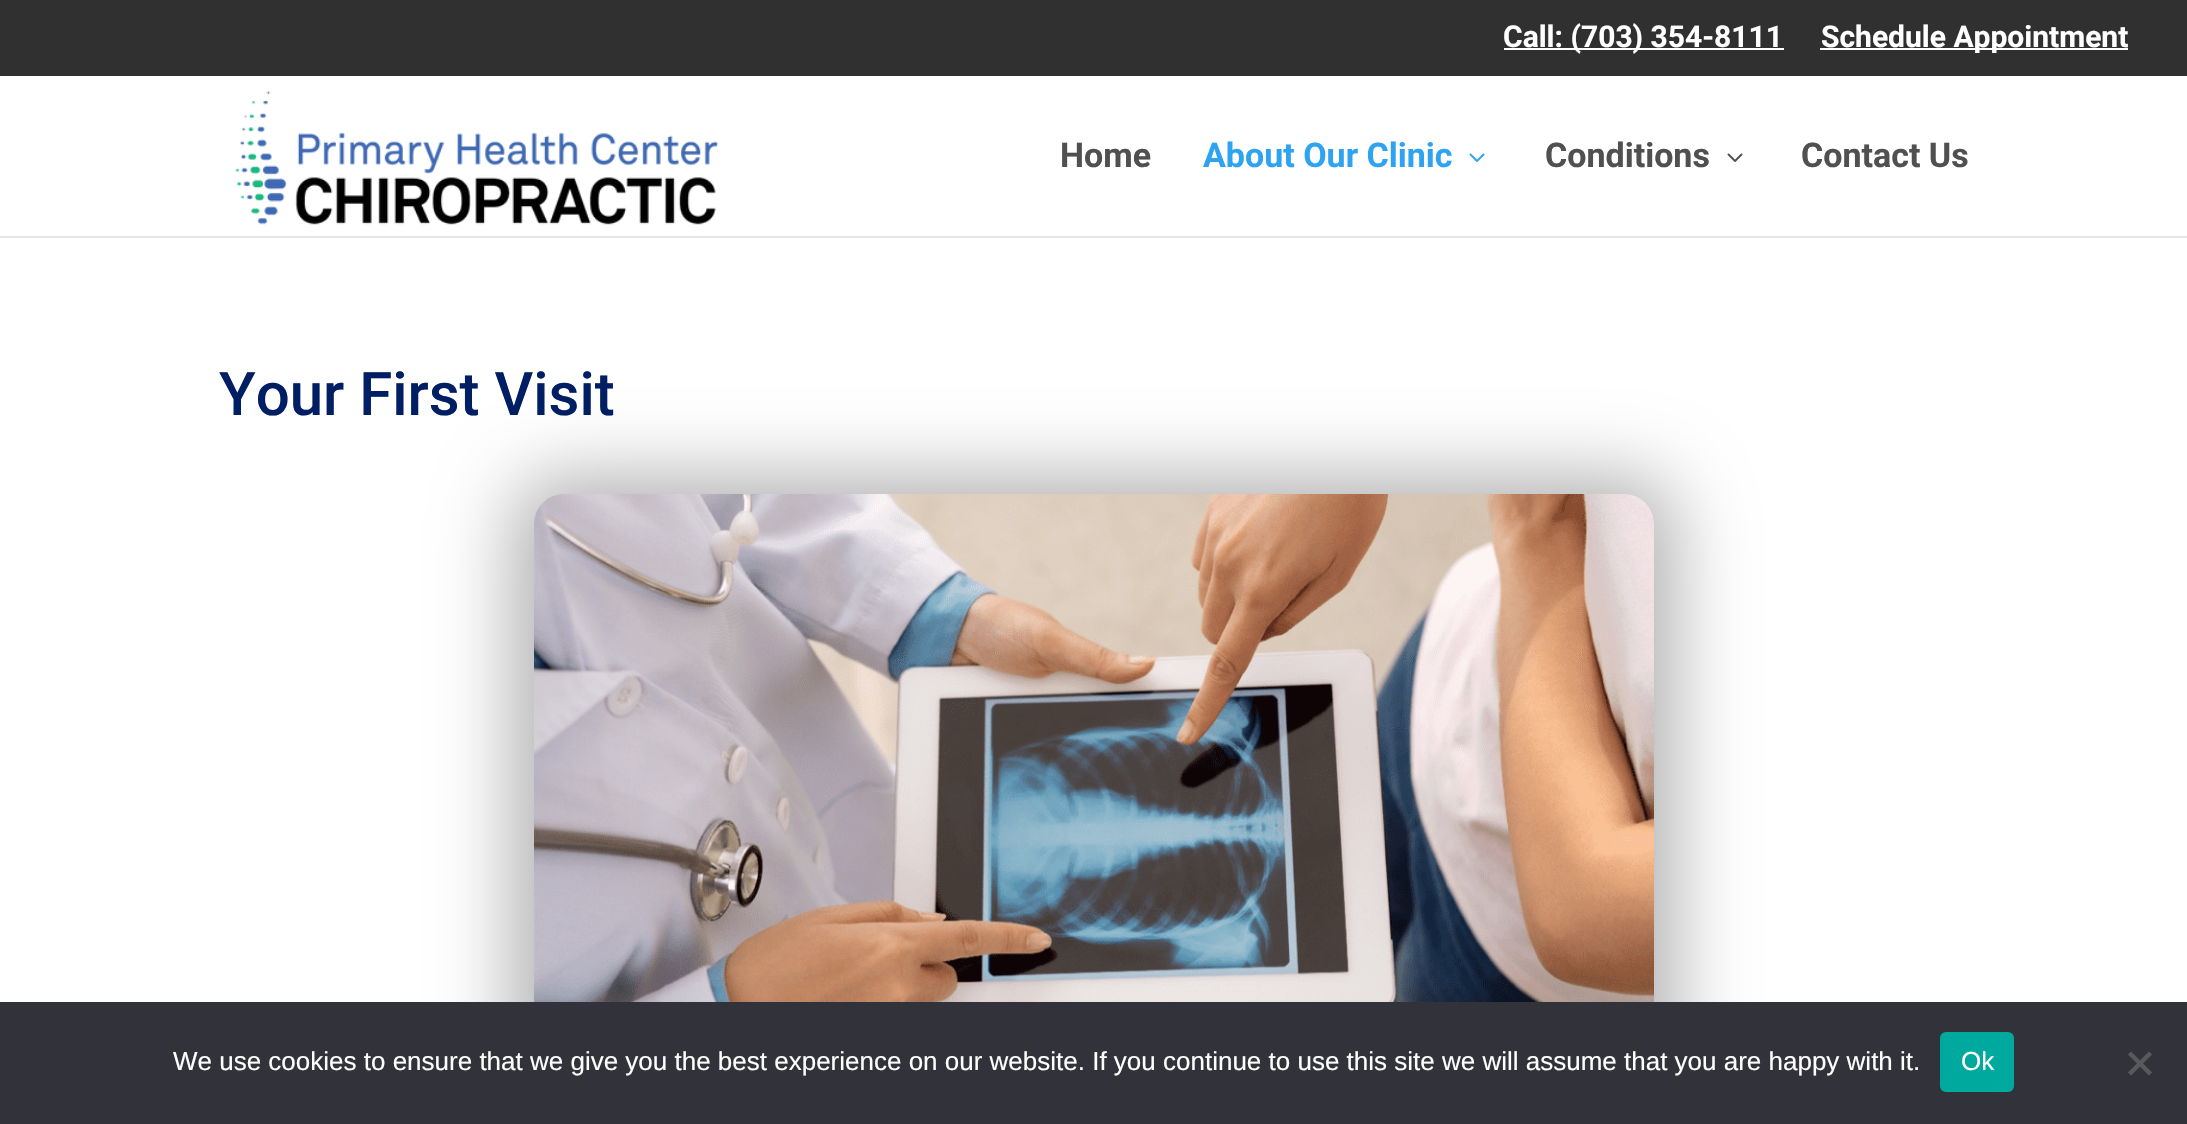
#include "include/core/SkBlurTypes.h"
#include "include/core/SkCanvas.h"
#include "include/core/SkData.h"
#include "include/core/SkFont.h"
#include "include/core/SkFontMgr.h"
#include "include/core/SkImage.h"
#include "include/core/SkMaskFilter.h"
#include "include/core/SkPaint.h"
#include "include/core/SkPathBuilder.h"
#include "include/core/SkTextBlob.h"
#include "include/effects/SkDashPathEffect.h"
#include "include/effects/SkGradientShader.h"
#include "include/utils/SkParsePath.h"

extern sk_sp<SkFontMgr> fontMgr;

void draw(SkCanvas* canvas) {
  SkPaint p;
  p.setAntiAlias(true);
  canvas->clear(SK_ColorWHITE);
  p.setColor(SkColorSetRGB(48, 48, 48));
  canvas->drawRect(SkRect::MakeLTRB(0, 0, 2187, 76), p);
  p.setColor(SK_ColorWHITE);
  canvas->drawRect(SkRect::MakeLTRB(1504, 48, 1784, 50), p);
  canvas->drawRect(SkRect::MakeLTRB(1820, 48, 2128, 50), p);
  p.setColor(SkColorSetRGB(230, 230, 230));
  canvas->drawRect(SkRect::MakeLTRB(0, 236, 2187, 238), p);
  canvas->drawImageRect(SkImages::DeferredFromEncodedData(SkData::MakeFromFileName("images/1.png")), SkRect::MakeLTRB(235, 91, 719, 225), SkSamplingOptions());
  canvas->drawImageRect(SkImages::DeferredFromEncodedData(SkData::MakeFromFileName("images/2.png")), SkRect::MakeLTRB(1469, 153, 1485, 162), SkSamplingOptions());
  canvas->drawImageRect(SkImages::DeferredFromEncodedData(SkData::MakeFromFileName("images/3.png")), SkRect::MakeLTRB(1727, 153, 1743, 162), SkSamplingOptions());
  p.setColor(SkColorSetARGB(77, 0, 0, 0));
  p.setMaskFilter(SkMaskFilter::MakeBlur(kNormal_SkBlurStyle, 38));
  canvas->drawRoundRect(SkRect::MakeLTRB(512, 476, 1676, 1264), 52, 52, p);
  p.setMaskFilter(nullptr);
  canvas->drawImageRect(SkImages::DeferredFromEncodedData(SkData::MakeFromFileName("images/4.png")), SkRect::MakeLTRB(534, 494, 1654, 1002), SkSamplingOptions());
  p.setColor(SkColorSetRGB(50, 50, 58));
  canvas->drawRect(SkRect::MakeLTRB(0, 1002, 2187, 1124), p);
  p.setColor(SkColorSetRGB(0, 169, 157));
  canvas->drawRoundRect(SkRect::MakeLTRB(1940, 1032, 2014, 1092), 6, 6, p);
  p.setColor(SkColorSetRGB(89, 89, 93));
  canvas->drawPath(SkPathBuilder().moveTo(2149, 1051.5f).lineTo(2152, 1054.5f).lineTo(2131, 1075.5f).lineTo(2128, 1072.5f).close().detach(), p);
  canvas->drawPath(SkPathBuilder().moveTo(2128, 1054.5f).lineTo(2131, 1051.5f).lineTo(2152, 1072.5f).lineTo(2149, 1075.5f).close().detach(), p);
  SkFont font1(fontMgr->matchFamilyStyle("Roboto", SkFontStyle::Bold()), 30);
  font1.setSubpixel(true);
  p.setColor(SK_ColorWHITE);
  canvas->drawString("Call: (703) 354-8111", 1503, 47, font1, p);
  canvas->drawString("Schedule Appointment", 1821, 47, font1, p);
  SkFont font2(fontMgr->matchFamilyStyle("Roboto", SkFontStyle::Bold()), 34);
  font2.setSubpixel(true);
  p.setColor(SkColorSetRGB(80, 80, 80));
  canvas->drawString("Home", 1060, 167, font2, p);
  p.setColor(SkColorSetRGB(46, 163, 242));
  canvas->drawString("About Our Clinic", 1203, 167, font2, p);
  p.setColor(SkColorSetRGB(80, 80, 80));
  canvas->drawString("Conditions", 1545, 167, font2, p);
  canvas->drawString("Contact Us", 1801, 167, font2, p);
  SkFont font3(fontMgr->matchFamilyStyle("Roboto", SkFontStyle(500, SkFontStyle::kNormal_Width, SkFontStyle::kUpright_Slant)), 60);
  font3.setSubpixel(true);
  p.setColor(SkColorSetRGB(0, 30, 99));
  canvas->drawString("Your First Visit", 219, 415, font3, p);
  SkFont font4(fontMgr->matchFamilyStyle("Liberation Sans", SkFontStyle::Normal()), 26);
  font4.setSubpixel(true);
  p.setColor(SK_ColorWHITE);
  canvas->drawString("We use cookies to ensure that we give you the best experience on our website. If you continue to use this site we will assume that you are happy with it.", 173, 1070, font4, p);
  canvas->drawString("Ok", 1961, 1070, font4, p);
}
